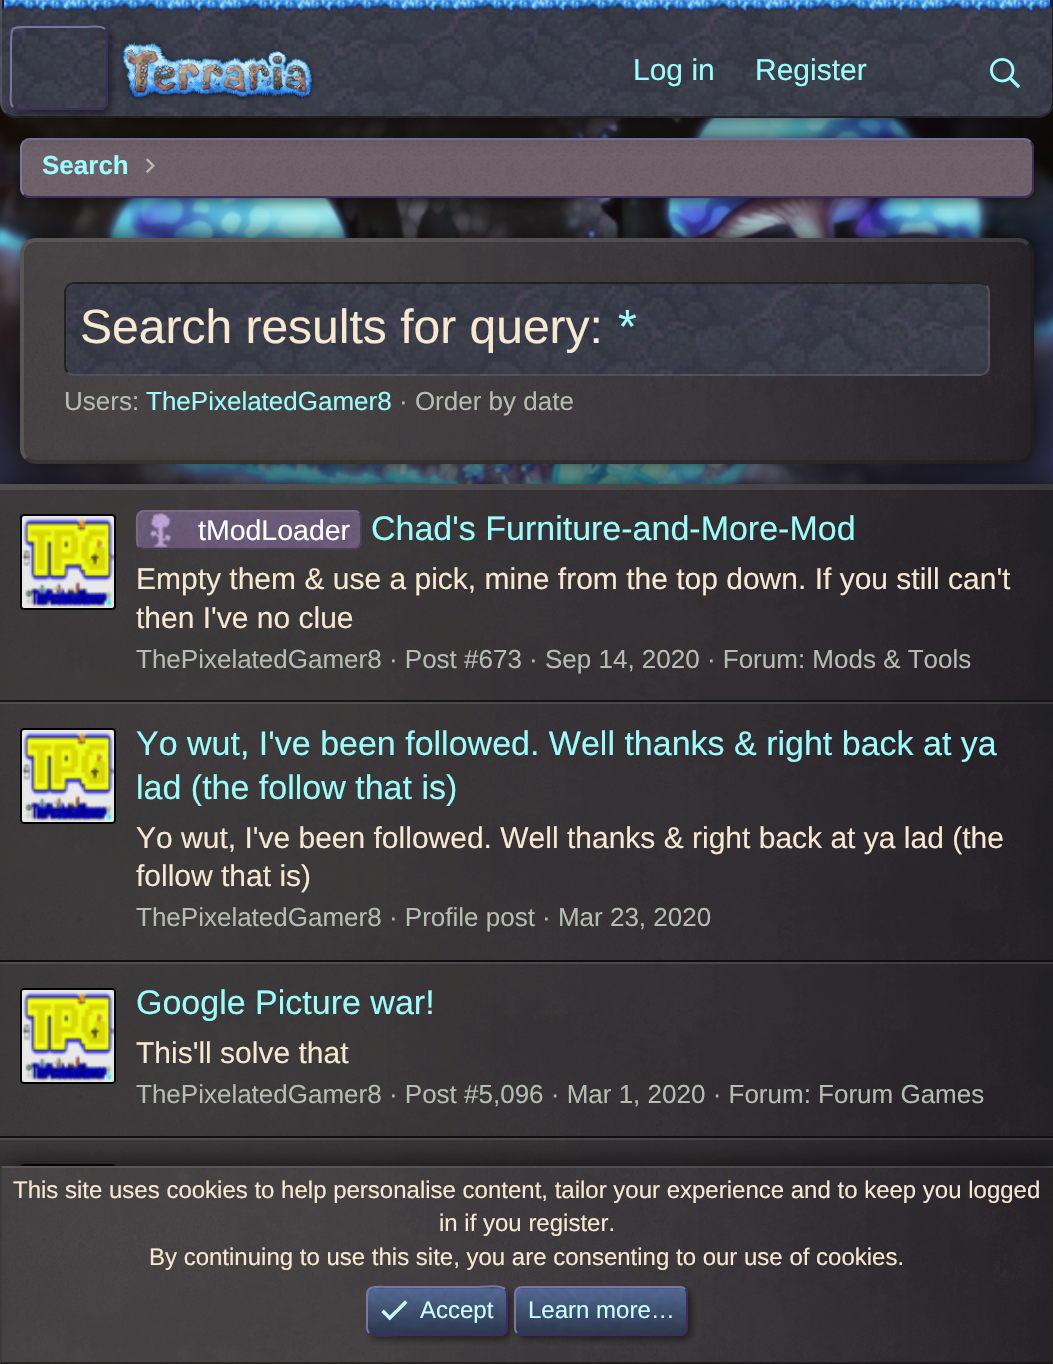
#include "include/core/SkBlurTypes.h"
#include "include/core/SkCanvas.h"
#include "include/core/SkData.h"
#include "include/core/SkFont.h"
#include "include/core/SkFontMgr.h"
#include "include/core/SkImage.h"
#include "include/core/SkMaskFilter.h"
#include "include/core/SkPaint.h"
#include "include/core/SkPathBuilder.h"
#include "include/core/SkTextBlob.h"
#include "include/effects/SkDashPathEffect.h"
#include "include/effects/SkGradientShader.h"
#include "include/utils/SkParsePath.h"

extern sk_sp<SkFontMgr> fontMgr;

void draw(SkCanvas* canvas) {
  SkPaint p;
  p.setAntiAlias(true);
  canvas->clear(SK_ColorWHITE);
  canvas->drawImageRect(SkImages::DeferredFromEncodedData(SkData::MakeFromFileName("images/1.png")), SkRect::MakeLTRB(0, 102, 1053, 484), SkSamplingOptions());
  p.setColor(SkColorSetRGB(10, 10, 10));
  p.setMaskFilter(SkMaskFilter::MakeBlur(kNormal_SkBlurStyle, 10));
  canvas->drawRoundRect(SkRect::MakeLTRB(20, 138, 1034, 198), 10, 10, p);
  p.setMaskFilter(nullptr);
  canvas->drawImageRect(SkImages::DeferredFromEncodedData(SkData::MakeFromFileName("images/7.png")), SkRect::MakeLTRB(20, 138, 1034, 198), SkSamplingOptions());
  p.setStyle(SkPaint::kStroke_Style);
  p.setStrokeWidth(2);
  p.setColor(SkColorSetRGB(63, 44, 92));
  canvas->drawPath(SkPathBuilder().moveTo(1030.5f, 141.5f).cubicTo(1032, 143.5f, 1033, 145.5f, 1033, 148).lineTo(1033, 188).cubicTo(1033, 190.5f, 1032, 192.5f, 1030.5f, 194.5f).cubicTo(1028.5f, 196, 1026.5f, 197, 1024, 197).lineTo(30, 197).cubicTo(27.5f, 197, 25.5f, 196, 23.5f, 194.5f).detach(), p);
  p.setColor(SkColorSetRGB(120, 118, 162));
  canvas->drawPath(SkPathBuilder().moveTo(23.5f, 194.5f).cubicTo(22, 192.5f, 21, 190.5f, 21, 188).lineTo(21, 148).cubicTo(21, 145.5f, 22, 143.5f, 23.5f, 141.5f).cubicTo(25.5f, 140, 27.5f, 139, 30, 139).lineTo(1024, 139).cubicTo(1026.5f, 139, 1028.5f, 140, 1030.5f, 141.5f).detach(), p);
  canvas->drawImageRect(SkImages::DeferredFromEncodedData(SkData::MakeFromFileName("images/8.png")), SkRect::MakeLTRB(146, 158, 155, 173), SkSamplingOptions());
  p.setStyle(SkPaint::kFill_Style);
  p.setColor(SkColorSetRGB(10, 10, 10));
  p.setMaskFilter(SkMaskFilter::MakeBlur(kNormal_SkBlurStyle, 15));
  canvas->drawRoundRect(SkRect::MakeLTRB(0, 0, 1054, 118), 16, 16, p);
  p.setMaskFilter(nullptr);
  canvas->drawImageRect(SkImages::DeferredFromEncodedData(SkData::MakeFromFileName("images/2.png")), SkRect::MakeLTRB(0, 0, 1053, 118), SkSamplingOptions());
  p.setColor(SkColorSetARGB(128, 13, 4, 2));
  canvas->drawPath(SkPathBuilder().moveTo(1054, 0).lineTo(1052, 0).lineTo(1052, 102).cubicTo(1052, 106, 1050, 110, 1048, 112).lineTo(1049, 113).cubicTo(1052, 110, 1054, 106, 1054, 102).close().detach(), p);
  canvas->drawPath(SkPathBuilder().moveTo(16, 118).lineTo(1038, 118).cubicTo(1042, 118, 1046, 116, 1049, 113).lineTo(1048, 112).cubicTo(1046, 114, 1042, 116, 1038, 116).lineTo(16, 116).cubicTo(12, 116, 8, 114, 6, 112).lineTo(5, 113).cubicTo(8, 116, 12, 118, 16, 118).close().detach(), p);
  p.setColor(SkColorSetARGB(26, 255, 255, 255));
  canvas->drawPath(SkPathBuilder().moveTo(0, 0).lineTo(2, 0).lineTo(2, 102).cubicTo(2, 106, 4, 110, 6, 112).lineTo(5, 113).cubicTo(2, 110, 0, 106, 0, 102).close().detach(), p);
  canvas->drawImageRect(SkImages::DeferredFromEncodedData(SkData::MakeFromFileName("images/3.png")), SkRect::MakeLTRB(2, 0, 1052, 13), SkSamplingOptions());
  canvas->drawImageRect(SkImages::DeferredFromEncodedData(SkData::MakeFromFileName("images/4.png")), SkRect::MakeLTRB(4, 0, 1050, 13), SkSamplingOptions());
  canvas->save();
  canvas->clipPath(SkPathBuilder(SkPathFillType::kEvenOdd).moveTo(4, 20).lineTo(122, 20).lineTo(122, 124).lineTo(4, 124).close().moveTo(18, 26).lineTo(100, 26).cubicTo(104.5f, 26, 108, 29.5f, 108, 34).lineTo(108, 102).cubicTo(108, 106.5f, 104.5f, 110, 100, 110).lineTo(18, 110).cubicTo(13.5f, 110, 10, 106.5f, 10, 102).lineTo(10, 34).cubicTo(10, 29.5f, 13.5f, 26, 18, 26).close().detach(), true);
  p.setColor(SkColorSetARGB(128, 10, 10, 10));
  p.setMaskFilter(SkMaskFilter::MakeBlur(kNormal_SkBlurStyle, 3));
  canvas->drawRoundRect(SkRect::MakeLTRB(14, 30, 112, 114), 8, 8, p);
  p.setMaskFilter(nullptr);
  canvas->restore();
  p.setStyle(SkPaint::kStroke_Style);
  p.setColor(SkColorSetRGB(63, 44, 92));
  canvas->drawPath(SkPathBuilder().moveTo(105, 29).cubicTo(109, 33, 107, 41.5f, 107, 45.5f).lineTo(107, 90.5f).cubicTo(107, 111, 107.5f, 109, 86.5f, 109).lineTo(31.5f, 109).cubicTo(28.5f, 109, 17.5f, 111, 13, 107).detach(), p);
  p.setColor(SkColorSetRGB(120, 118, 162));
  canvas->drawPath(SkPathBuilder().moveTo(13, 107).cubicTo(9, 103, 11, 94.5f, 11, 90.5f).lineTo(11, 45.5f).cubicTo(11, 25, 10.5f, 27, 31.5f, 27).lineTo(86.5f, 27).cubicTo(89.5f, 27, 100.5f, 25, 105, 29).detach(), p);
  canvas->drawImageRect(SkImages::DeferredFromEncodedData(SkData::MakeFromFileName("images/5.png")), SkRect::MakeLTRB(121, 41, 315, 101), SkSamplingOptions());
  canvas->drawImageRect(SkImages::DeferredFromEncodedData(SkData::MakeFromFileName("images/6.png")), SkRect::MakeLTRB(990, 58, 1020, 88), SkSamplingOptions());
  p.setStyle(SkPaint::kFill_Style);
  p.setColor(SkColorSetRGB(10, 10, 10));
  p.setMaskFilter(SkMaskFilter::MakeBlur(kNormal_SkBlurStyle, 15));
  canvas->drawRoundRect(SkRect::MakeLTRB(20, 238, 1034, 464), 16, 16, p);
  p.setMaskFilter(nullptr);
  canvas->drawImageRect(SkImages::DeferredFromEncodedData(SkData::MakeFromFileName("images/9.png")), SkRect::MakeLTRB(20, 238, 1034, 464), SkSamplingOptions());
  p.setStyle(SkPaint::kStroke_Style);
  p.setStrokeWidth(4);
  p.setColor(SkColorSetARGB(51, 13, 4, 2));
  canvas->drawPath(SkPathBuilder().moveTo(1028, 244).cubicTo(1030.5f, 246.5f, 1032, 250.5f, 1032, 254).lineTo(1032, 448).cubicTo(1032, 451.5f, 1030.5f, 455.5f, 1028, 458).cubicTo(1025.5f, 460.5f, 1021.5f, 462, 1018, 462).lineTo(36, 462).cubicTo(32.5f, 462, 28.5f, 460.5f, 26, 458).detach(), p);
  p.setColor(SkColorSetARGB(26, 255, 255, 255));
  canvas->drawPath(SkPathBuilder().moveTo(26, 458).cubicTo(23.5f, 455.5f, 22, 451.5f, 22, 448).lineTo(22, 254).cubicTo(22, 250.5f, 23.5f, 246.5f, 26, 244).cubicTo(28.5f, 241.5f, 32.5f, 240, 36, 240).lineTo(1018, 240).cubicTo(1021.5f, 240, 1025.5f, 241.5f, 1028, 244).detach(), p);
  canvas->drawImageRect(SkImages::DeferredFromEncodedData(SkData::MakeFromFileName("images/10.png")), SkRect::MakeLTRB(64, 282, 990, 376), SkSamplingOptions());
  p.setStrokeWidth(2);
  canvas->drawPath(SkPathBuilder().moveTo(986.5f, 285.5f).cubicTo(988, 287.5f, 989, 289.5f, 989, 292).lineTo(989, 366).cubicTo(989, 368.5f, 988, 370.5f, 986.5f, 372.5f).cubicTo(984.5f, 374, 982.5f, 375, 980, 375).lineTo(74, 375).cubicTo(71.5f, 375, 69.5f, 374, 67.5f, 372.5f).detach(), p);
  p.setColor(SkColorSetARGB(128, 13, 4, 2));
  canvas->drawPath(SkPathBuilder().moveTo(67.5f, 372.5f).cubicTo(66, 370.5f, 65, 368.5f, 65, 366).lineTo(65, 292).cubicTo(65, 289.5f, 66, 287.5f, 67.5f, 285.5f).cubicTo(69.5f, 284, 71.5f, 283, 74, 283).lineTo(980, 283).cubicTo(982.5f, 283, 984.5f, 284, 986.5f, 285.5f).detach(), p);
  p.setStyle(SkPaint::kFill_Style);
  p.setColor(SkColorSetRGB(10, 10, 10));
  p.setMaskFilter(SkMaskFilter::MakeBlur(kNormal_SkBlurStyle, 15));
  canvas->drawRect(SkRect::MakeLTRB(0, 484, 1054, 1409), p);
  p.setMaskFilter(nullptr);
  canvas->drawImageRect(SkImages::DeferredFromEncodedData(SkData::MakeFromFileName("images/11.png")), SkRect::MakeLTRB(0, 484, 1053, 1166), SkSamplingOptions());
  p.setColor(SkColorSetARGB(26, 255, 255, 255));
  canvas->drawRect(SkRect::MakeLTRB(0, 484, 1053, 486), p);
  canvas->drawRect(SkRect::MakeLTRB(0, 486, 1053, 488), p);
  canvas->drawRect(SkRect::MakeLTRB(0, 488, 1053, 490), p);
  p.setColor(SkColorSetRGB(20, 20, 20));
  canvas->drawRect(SkRect::MakeLTRB(0, 700, 1053, 702), p);
  p.setColor(SkColorSetRGB(232, 232, 232));
  canvas->drawRoundRect(SkRect::MakeLTRB(21, 515, 115, 609), 3, 3, p);
  p.setStyle(SkPaint::kStroke_Style);
  p.setColor(SK_ColorBLACK);
  canvas->drawRoundRect(SkRect::MakeLTRB(21, 515, 115, 609), 3, 3, p);
  canvas->drawImageRect(SkImages::DeferredFromEncodedData(SkData::MakeFromFileName("images/12.png")), SkRect::MakeLTRB(22, 517, 114, 607), SkSamplingOptions());
  canvas->drawImageRect(SkImages::DeferredFromEncodedData(SkData::MakeFromFileName("images/13.png")), SkRect::MakeLTRB(136, 510, 362, 550), SkSamplingOptions());
  p.setColor(SkColorSetARGB(77, 0, 0, 0));
  canvas->drawPath(SkPathBuilder().moveTo(359, 513).cubicTo(362.5f, 516.5f, 361, 525.5f, 361, 530).cubicTo(361, 535.5f, 363.5f, 549, 354, 549).lineTo(143.5f, 549).cubicTo(141.5f, 549, 140, 548, 139, 547).detach(), p);
  p.setColor(SkColorSetARGB(26, 255, 255, 255));
  canvas->drawPath(SkPathBuilder().moveTo(139, 547).cubicTo(135.5f, 543.5f, 137, 534.5f, 137, 530).cubicTo(137, 524.5f, 134.5f, 511, 144, 511).lineTo(354.5f, 511).cubicTo(356.5f, 511, 358, 512, 359, 513).detach(), p);
  p.setStyle(SkPaint::kFill_Style);
  canvas->drawRect(SkRect::MakeLTRB(0, 702, 1053, 704), p);
  p.setColor(SkColorSetRGB(15, 15, 15));
  canvas->drawRect(SkRect::MakeLTRB(0, 960, 1053, 962), p);
  p.setColor(SkColorSetRGB(232, 232, 232));
  canvas->drawRoundRect(SkRect::MakeLTRB(21, 729, 115, 823), 3, 3, p);
  p.setStyle(SkPaint::kStroke_Style);
  p.setColor(SK_ColorBLACK);
  canvas->drawRoundRect(SkRect::MakeLTRB(21, 729, 115, 823), 3, 3, p);
  canvas->drawImageRect(SkImages::DeferredFromEncodedData(SkData::MakeFromFileName("images/12.png")), SkRect::MakeLTRB(22, 731, 114, 821), SkSamplingOptions());
  p.setStyle(SkPaint::kFill_Style);
  p.setColor(SkColorSetARGB(26, 255, 255, 255));
  canvas->drawRect(SkRect::MakeLTRB(0, 962, 1053, 964), p);
  p.setColor(SkColorSetRGB(15, 15, 15));
  canvas->drawRect(SkRect::MakeLTRB(0, 1136, 1053, 1138), p);
  p.setColor(SkColorSetRGB(232, 232, 232));
  canvas->drawRoundRect(SkRect::MakeLTRB(21, 989, 115, 1083), 3, 3, p);
  p.setStyle(SkPaint::kStroke_Style);
  p.setColor(SK_ColorBLACK);
  canvas->drawRoundRect(SkRect::MakeLTRB(21, 989, 115, 1083), 3, 3, p);
  canvas->drawImageRect(SkImages::DeferredFromEncodedData(SkData::MakeFromFileName("images/12.png")), SkRect::MakeLTRB(22, 991, 114, 1081), SkSamplingOptions());
  p.setStyle(SkPaint::kFill_Style);
  p.setColor(SkColorSetARGB(26, 255, 255, 255));
  canvas->drawRect(SkRect::MakeLTRB(0, 1138, 1053, 1140), p);
  p.setStyle(SkPaint::kStroke_Style);
  p.setColor(SK_ColorBLACK);
  canvas->drawRoundRect(SkRect::MakeLTRB(21, 1165, 115, 1259), 3, 3, p);
  p.setStyle(SkPaint::kFill_Style);
  p.setColor(SkColorSetRGB(10, 10, 10));
  p.setMaskFilter(SkMaskFilter::MakeBlur(kNormal_SkBlurStyle, 15));
  canvas->drawRect(SkRect::MakeLTRB(0, 1166, 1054, 1364), p);
  p.setMaskFilter(nullptr);
  canvas->drawImageRect(SkImages::DeferredFromEncodedData(SkData::MakeFromFileName("images/14.png")), SkRect::MakeLTRB(0, 1166, 1053, 1364), SkSamplingOptions());
  p.setColor(SkColorSetARGB(26, 255, 255, 255));
  canvas->drawPath(SkPathBuilder().moveTo(0, 1166).lineTo(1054, 1166).lineTo(1052, 1168).lineTo(2, 1168).close().detach(), p);
  p.setColor(SkColorSetARGB(128, 13, 4, 2));
  canvas->drawPath(SkPathBuilder().moveTo(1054, 1166).lineTo(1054, 1364).lineTo(1052, 1362).lineTo(1052, 1168).close().detach(), p);
  canvas->drawPath(SkPathBuilder().moveTo(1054, 1364).lineTo(0, 1364).lineTo(2, 1362).lineTo(1052, 1362).close().detach(), p);
  p.setColor(SkColorSetARGB(26, 255, 255, 255));
  canvas->drawPath(SkPathBuilder().moveTo(0, 1364).lineTo(0, 1166).lineTo(2, 1168).lineTo(2, 1362).close().detach(), p);
  p.setColor(SkColorSetARGB(128, 10, 10, 10));
  p.setMaskFilter(SkMaskFilter::MakeBlur(kNormal_SkBlurStyle, 3));
  canvas->drawRoundRect(SkRect::MakeLTRB(370, 1290, 512, 1340), 8, 8, p);
  p.setMaskFilter(nullptr);
  canvas->drawImageRect(SkImages::DeferredFromEncodedData(SkData::MakeFromFileName("images/15.png")), SkRect::MakeLTRB(366, 1286, 508, 1336), SkSamplingOptions());
  p.setStyle(SkPaint::kStroke_Style);
  p.setColor(SkColorSetRGB(63, 44, 92));
  canvas->drawPath(SkPathBuilder().moveTo(505, 1289).cubicTo(508, 1292, 507, 1296, 507, 1299.5f).lineTo(507, 1311).cubicTo(507, 1339, 509.5f, 1335, 479, 1335).lineTo(395, 1335).cubicTo(393, 1335, 374, 1338, 369, 1333).detach(), p);
  p.setColor(SkColorSetRGB(120, 118, 162));
  canvas->drawPath(SkPathBuilder().moveTo(369, 1333).cubicTo(366, 1330, 367, 1326, 367, 1322.5f).lineTo(367, 1311).cubicTo(367, 1283, 364.5f, 1287, 395, 1287).lineTo(479, 1287).cubicTo(481, 1287, 500, 1284, 505, 1289).detach(), p);
  canvas->drawImageRect(SkImages::DeferredFromEncodedData(SkData::MakeFromFileName("images/16.png")), SkRect::MakeLTRB(381, 1300, 408, 1321), SkSamplingOptions());
  p.setStyle(SkPaint::kFill_Style);
  p.setColor(SkColorSetARGB(128, 10, 10, 10));
  p.setMaskFilter(SkMaskFilter::MakeBlur(kNormal_SkBlurStyle, 3));
  canvas->drawRoundRect(SkRect::MakeLTRB(518, 1290, 692, 1340), 8, 8, p);
  p.setMaskFilter(nullptr);
  canvas->drawImageRect(SkImages::DeferredFromEncodedData(SkData::MakeFromFileName("images/17.png")), SkRect::MakeLTRB(514, 1286, 688, 1336), SkSamplingOptions());
  p.setStyle(SkPaint::kStroke_Style);
  p.setColor(SkColorSetRGB(63, 44, 92));
  canvas->drawPath(SkPathBuilder().moveTo(685, 1289).cubicTo(686.5f, 1290.5f, 687, 1292, 687, 1294).lineTo(687, 1328).cubicTo(687, 1330, 686.5f, 1331.5f, 685, 1333).cubicTo(683.5f, 1334.5f, 682, 1335, 680, 1335).lineTo(522, 1335).cubicTo(520, 1335, 518.5f, 1334.5f, 517, 1333).detach(), p);
  p.setColor(SkColorSetRGB(120, 118, 162));
  canvas->drawPath(SkPathBuilder().moveTo(517, 1333).cubicTo(515.5f, 1331.5f, 515, 1330, 515, 1328).lineTo(515, 1294).cubicTo(515, 1292, 515.5f, 1290.5f, 517, 1289).cubicTo(518.5f, 1287.5f, 520, 1287, 522, 1287).lineTo(680, 1287).cubicTo(682, 1287, 683.5f, 1287.5f, 685, 1289).detach(), p);
  SkFont font1(fontMgr->matchFamilyStyle("Liberation Sans", SkFontStyle::Normal()), 30);
  font1.setSubpixel(true);
  p.setStyle(SkPaint::kFill_Style);
  p.setColor(SkColorSetRGB(156, 255, 253));
  canvas->drawString("Log in", 633, 80, font1, p);
  canvas->drawString("Register", 755, 80, font1, p);
  SkFont font2(fontMgr->matchFamilyStyle("Liberation Sans", SkFontStyle::Bold()), 26);
  font2.setSubpixel(true);
  canvas->drawString("Search", 42, 174, font2, p);
  SkFont font3(fontMgr->matchFamilyStyle("Liberation Sans", SkFontStyle::Normal()), 48);
  font3.setSubpixel(true);
  p.setColor(SkColorSetRGB(247, 232, 209));
  canvas->drawString("Search results for query:", 80, 343, font3, p);
  SkFont font4(fontMgr->matchFamilyStyle("Liberation Sans", SkFontStyle::Italic()), 48);
  font4.setSubpixel(true);
  p.setColor(SkColorSetRGB(156, 255, 253));
  canvas->drawString("*", 616, 343, font4, p);
  SkFont font5(fontMgr->matchFamilyStyle("Liberation Sans", SkFontStyle::Normal()), 26);
  font5.setSubpixel(true);
  p.setColor(SkColorSetRGB(181, 189, 178));
  canvas->drawString("Users:", 64, 410, font5, p);
  p.setColor(SkColorSetRGB(156, 255, 253));
  canvas->drawString("ThePixelatedGamer8", 146, 410, font5, p);
  p.setColor(SkColorSetRGB(181, 189, 178));
  canvas->drawString("· Order by date", 399, 410, font5, p);
  SkFont font6(fontMgr->matchFamilyStyle("Liberation Sans", SkFontStyle::Normal()), 28.5f);
  font6.setSubpixel(true);
  p.setColor(SK_ColorWHITE);
  canvas->drawString("tModLoader", 198, 540, font6, p);
  SkFont font7(fontMgr->matchFamilyStyle("Liberation Sans", SkFontStyle::Normal()), 34);
  font7.setSubpixel(true);
  p.setColor(SkColorSetRGB(156, 255, 253));
  canvas->drawString("Chad's Furniture-and-More-Mod", 371, 540, font7, p);
  p.setColor(SkColorSetRGB(247, 232, 209));
  canvas->drawString("Empty them & use a pick, mine from the top down. If you still can't", 136, 589, font1, p);
  canvas->drawString("then I've no clue", 136, 628, font1, p);
  p.setColor(SkColorSetRGB(181, 189, 178));
  canvas->drawString("ThePixelatedGamer8 · Post #673 · Sep 14, 2020 · Forum: Mods & Tools", 136, 668, font5, p);
  p.setColor(SkColorSetRGB(156, 255, 253));
  canvas->drawString("Yo wut, I've been followed. Well thanks & right back at ya", 136, 755, font7, p);
  canvas->drawString("lad (the follow that is)", 136, 799, font7, p);
  p.setColor(SkColorSetRGB(247, 232, 209));
  canvas->drawString("Yo wut, I've been followed. Well thanks & right back at ya lad (the", 136, 848, font1, p);
  canvas->drawString("follow that is)", 136, 886, font1, p);
  p.setColor(SkColorSetRGB(181, 189, 178));
  canvas->drawString("ThePixelatedGamer8 · Profile post · Mar 23, 2020", 136, 926, font5, p);
  p.setColor(SkColorSetRGB(156, 255, 253));
  canvas->drawString("Google Picture war!", 136, 1014, font7, p);
  p.setColor(SkColorSetRGB(247, 232, 209));
  canvas->drawString("This'll solve that", 136, 1063, font1, p);
  p.setColor(SkColorSetRGB(181, 189, 178));
  canvas->drawString("ThePixelatedGamer8 · Post #5,096 · Mar 1, 2020 · Forum: Forum Games", 136, 1103, font5, p);
  SkFont font8(fontMgr->matchFamilyStyle("Liberation Sans", SkFontStyle::Normal()), 24);
  font8.setSubpixel(true);
  p.setColor(SkColorSetRGB(247, 232, 209));
  canvas->drawString("This site uses cookies to help personalise content, tailor your experience and to keep you logged", 13, 1198, font8, p);
  canvas->drawString("in if you register.", 439, 1231, font8, p);
  canvas->drawString("By continuing to use this site, you are consenting to our use of cookies.", 149, 1265, font8, p);
  p.setColor(SkColorSetRGB(200, 255, 255));
  canvas->drawString("Accept", 420, 1318, font8, p);
  canvas->drawString("Learn more…", 528, 1318, font8, p);
}
